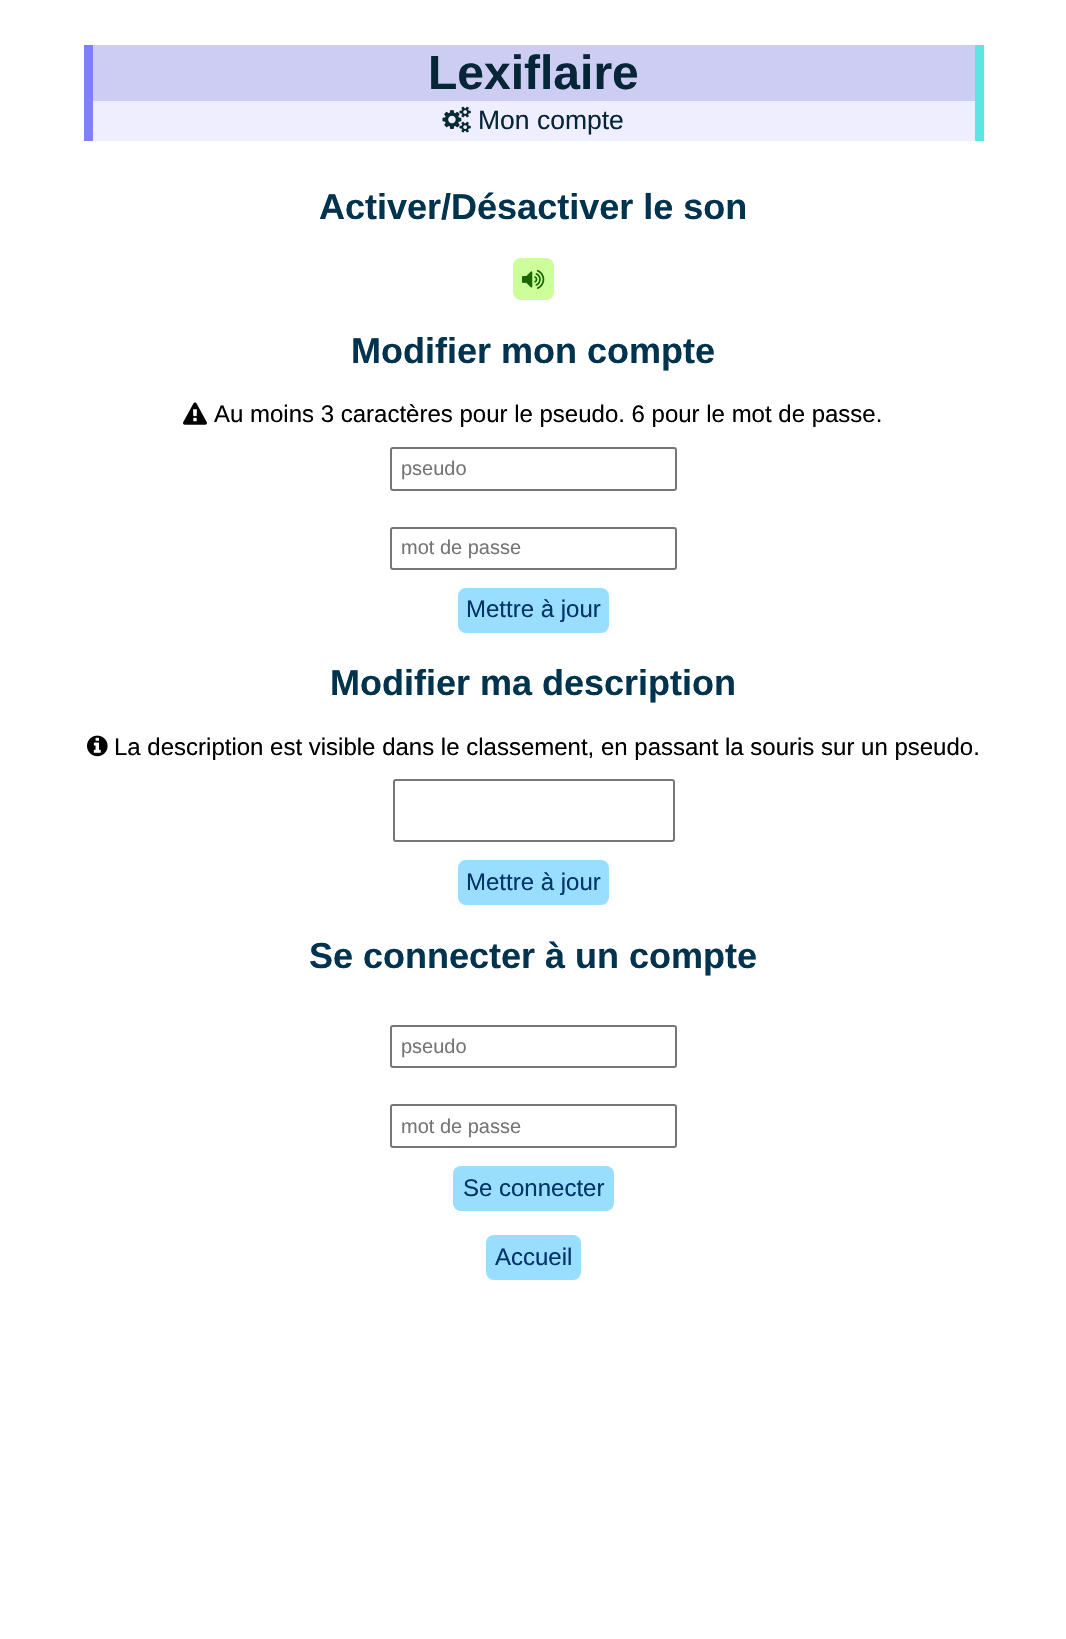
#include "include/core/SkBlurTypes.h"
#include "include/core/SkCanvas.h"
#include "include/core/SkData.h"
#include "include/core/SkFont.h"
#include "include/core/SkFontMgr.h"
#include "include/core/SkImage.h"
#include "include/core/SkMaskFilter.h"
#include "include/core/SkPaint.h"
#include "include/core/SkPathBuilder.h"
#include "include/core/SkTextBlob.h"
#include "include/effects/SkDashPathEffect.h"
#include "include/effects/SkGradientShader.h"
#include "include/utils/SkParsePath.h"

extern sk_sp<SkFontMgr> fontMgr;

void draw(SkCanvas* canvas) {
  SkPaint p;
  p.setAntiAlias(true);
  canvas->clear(SK_ColorWHITE);
  p.setColor(SkColorSetRGB(91, 230, 230));
  canvas->drawRect(SkRect::MakeLTRB(975, 45, 984, 141), p);
  p.setColor(SkColorSetRGB(129, 129, 247));
  canvas->drawRect(SkRect::MakeLTRB(84, 45, 93, 141), p);
  p.setColor(SkColorSetRGB(205, 205, 243));
  canvas->drawRect(SkRect::MakeLTRB(93, 45, 975, 101), p);
  p.setColor(SkColorSetRGB(238, 238, 255));
  canvas->drawRect(SkRect::MakeLTRB(93, 101, 975, 141), p);
  canvas->drawImageRect(SkImages::DeferredFromEncodedData(SkData::MakeFromFileName("images/1.png")), SkRect::MakeLTRB(442, 106, 471, 133), SkSamplingOptions());
  p.setColor(SkColorSetRGB(204, 255, 153));
  canvas->drawRoundRect(SkRect::MakeLTRB(513, 258, 554, 300), 8, 8, p);
  canvas->drawImageRect(SkImages::DeferredFromEncodedData(SkData::MakeFromFileName("images/2.png")), SkRect::MakeLTRB(522, 269, 545, 289), SkSamplingOptions());
  canvas->drawImageRect(SkImages::DeferredFromEncodedData(SkData::MakeFromFileName("images/3.png")), SkRect::MakeLTRB(183, 402, 207, 425), SkSamplingOptions());
  p.setStyle(SkPaint::kStroke_Style);
  p.setStrokeWidth(2);
  p.setColor(SkColorSetRGB(118, 118, 118));
  canvas->drawRoundRect(SkRect::MakeLTRB(391, 448, 676, 490), 2, 2, p);
  canvas->drawRoundRect(SkRect::MakeLTRB(391, 528, 676, 569), 2, 2, p);
  p.setStyle(SkPaint::kFill_Style);
  p.setColor(SkColorSetRGB(153, 221, 255));
  canvas->drawRoundRect(SkRect::MakeLTRB(458, 588, 609, 633), 8, 8, p);
  canvas->drawImageRect(SkImages::DeferredFromEncodedData(SkData::MakeFromFileName("images/4.png")), SkRect::MakeLTRB(87, 735, 108, 757), SkSamplingOptions());
  p.setStyle(SkPaint::kStroke_Style);
  p.setColor(SkColorSetRGB(118, 118, 118));
  canvas->drawRoundRect(SkRect::MakeLTRB(394, 780, 674, 841), 2, 2, p);
  p.setStyle(SkPaint::kFill_Style);
  p.setColor(SkColorSetRGB(153, 221, 255));
  canvas->drawRoundRect(SkRect::MakeLTRB(458, 860, 609, 905), 8, 8, p);
  p.setStyle(SkPaint::kStroke_Style);
  p.setColor(SkColorSetRGB(118, 118, 118));
  canvas->drawRoundRect(SkRect::MakeLTRB(391, 1026, 676, 1067), 2, 2, p);
  canvas->drawRoundRect(SkRect::MakeLTRB(391, 1105, 676, 1147), 2, 2, p);
  p.setStyle(SkPaint::kFill_Style);
  p.setColor(SkColorSetRGB(153, 221, 255));
  canvas->drawRoundRect(SkRect::MakeLTRB(453, 1166, 614, 1211), 8, 8, p);
  canvas->drawRoundRect(SkRect::MakeLTRB(486, 1235, 581, 1280), 8, 8, p);
  SkFont font1(fontMgr->matchFamilyStyle("Liberation Sans", SkFontStyle::Bold()), 48);
  font1.setSubpixel(true);
  p.setColor(SkColorSetRGB(6, 38, 56));
  canvas->drawString("Lexiflaire", 428, 89, font1, p);
  SkFont font2(fontMgr->matchFamilyStyle("Liberation Sans", SkFontStyle::Normal()), 26.5f);
  font2.setSubpixel(true);
  canvas->drawString("Mon compte", 478, 129, font2, p);
  SkFont font3(fontMgr->matchFamilyStyle("Liberation Sans", SkFontStyle::Bold()), 36);
  font3.setSubpixel(true);
  p.setColor(SkColorSetRGB(0, 51, 77));
  canvas->drawString("Activer/Désactiver le son", 319, 219, font3, p);
  canvas->drawString("Modifier mon compte", 351, 363, font3, p);
  SkFont font4(fontMgr->matchFamilyStyle("Liberation Sans", SkFontStyle::Normal()), 24);
  font4.setSubpixel(true);
  p.setColor(SK_ColorBLACK);
  canvas->drawString("Au moins 3 caractères pour le pseudo. 6 pour le mot de passe.", 214, 422, font4, p);
  SkFont font5(fontMgr->matchFamilyStyle("Liberation Sans", SkFontStyle::Normal()), 20);
  font5.setSubpixel(true);
  p.setColor(SkColorSetRGB(117, 117, 117));
  canvas->drawString("pseudo", 401, 475, font5, p);
  canvas->drawString("mot de passe", 401, 554, font5, p);
  p.setColor(SkColorSetRGB(0, 51, 102));
  canvas->drawString("Mettre à jour", 466, 617, font4, p);
  p.setColor(SkColorSetRGB(0, 51, 77));
  canvas->drawString("Modifier ma description", 330, 695, font3, p);
  p.setColor(SK_ColorBLACK);
  canvas->drawString("La description est visible dans le classement, en passant la souris sur un pseudo.", 114, 755, font4, p);
  p.setColor(SkColorSetRGB(0, 51, 102));
  canvas->drawString("Mettre à jour", 466, 890, font4, p);
  p.setColor(SkColorSetRGB(0, 51, 77));
  canvas->drawString("Se connecter à un compte", 309, 968, font3, p);
  p.setColor(SkColorSetRGB(117, 117, 117));
  canvas->drawString("pseudo", 401, 1053, font5, p);
  canvas->drawString("mot de passe", 401, 1133, font5, p);
  p.setColor(SkColorSetRGB(0, 51, 102));
  canvas->drawString("Se connecter", 463, 1196, font4, p);
  canvas->drawString("Accueil", 495, 1265, font4, p);
}
